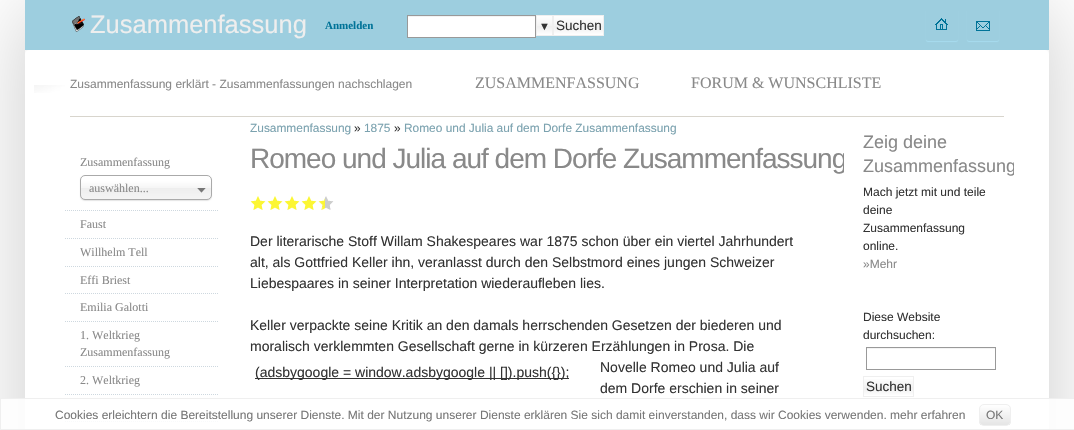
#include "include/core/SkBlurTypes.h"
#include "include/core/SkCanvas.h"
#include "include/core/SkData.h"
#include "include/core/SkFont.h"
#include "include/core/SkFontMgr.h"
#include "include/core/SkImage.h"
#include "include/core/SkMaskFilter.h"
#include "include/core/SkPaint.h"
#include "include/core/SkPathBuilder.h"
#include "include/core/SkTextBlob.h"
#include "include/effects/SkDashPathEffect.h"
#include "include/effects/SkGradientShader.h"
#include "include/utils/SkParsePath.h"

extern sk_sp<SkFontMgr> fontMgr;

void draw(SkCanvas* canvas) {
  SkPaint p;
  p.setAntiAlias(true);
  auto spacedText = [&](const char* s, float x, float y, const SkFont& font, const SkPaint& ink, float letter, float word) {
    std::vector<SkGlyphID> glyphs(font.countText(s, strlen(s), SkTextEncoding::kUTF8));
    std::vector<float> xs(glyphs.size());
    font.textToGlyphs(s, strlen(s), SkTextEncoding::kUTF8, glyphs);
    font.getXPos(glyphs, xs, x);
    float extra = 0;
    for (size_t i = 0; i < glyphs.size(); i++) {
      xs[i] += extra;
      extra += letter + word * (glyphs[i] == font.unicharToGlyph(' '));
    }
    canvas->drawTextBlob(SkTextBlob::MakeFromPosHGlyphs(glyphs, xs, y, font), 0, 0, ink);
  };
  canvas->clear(SK_ColorWHITE);
  canvas->save();
  canvas->clipPath(SkPathBuilder(SkPathFillType::kEvenOdd).moveTo(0, 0).lineTo(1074, 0).lineTo(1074, 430).lineTo(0, 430).close().moveTo(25, 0).lineTo(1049, 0).lineTo(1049, 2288).lineTo(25, 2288).close().detach(), true);
  p.setColor(SkColorSetARGB(51, 0, 0, 0));
  p.setMaskFilter(SkMaskFilter::MakeBlur(kNormal_SkBlurStyle, 40));
  canvas->drawRect(SkRect::MakeLTRB(25, 10, 1049, 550), p);
  p.setMaskFilter(nullptr);
  canvas->restore();
  canvas->drawImageRect(SkImages::DeferredFromEncodedData(SkData::MakeFromFileName("images/1.png")), SkRect::MakeLTRB(34, 85, 65, 93), SkSamplingOptions());
  canvas->drawImageRect(SkImages::DeferredFromEncodedData(SkData::MakeFromFileName("images/2.png")), SkRect::MakeLTRB(25, 50, 1049, 54), SkSamplingOptions());
  p.setColor(SkColorSetRGB(157, 206, 223));
  canvas->drawRect(SkRect::MakeLTRB(25, 0, 1049, 50), p);
  canvas->drawImageRect(SkImages::DeferredFromEncodedData(SkData::MakeFromFileName("images/3.png")), SkRect::MakeLTRB(72, 16, 85, 32), SkSamplingOptions());
  p.setColor(SK_ColorWHITE);
  canvas->drawRect(SkRect::MakeLTRB(408, 17, 535, 37), p);
  p.setColor(SkColorSetRGB(243, 243, 243));
  canvas->drawRect(SkRect::MakeLTRB(408, 16, 535, 17), p);
  p.setStyle(SkPaint::kStroke_Style);
  p.setStrokeWidth(1);
  p.setColor(SkColorSetRGB(153, 153, 153));
  canvas->drawRect(SkRect::MakeLTRB(407.5f, 15.5f, 535.5f, 37.5f), p);
  p.setStyle(SkPaint::kFill_Style);
  {
    const SkColor colors[] = {SK_ColorWHITE, SkColorSetRGB(243, 243, 243), SkColorSetRGB(237, 237, 237), SK_ColorWHITE};
    const float stops[] = {0, 0.5f, 0.51f, 1};
    const SkPoint ends[] = {{545, 16}, {545, 35}};
    p.setShader(SkGradientShader::MakeLinear(ends, colors, stops, 4, SkTileMode::kClamp));
    p.setAlpha(255);
  }
  canvas->drawRect(SkRect::MakeLTRB(537, 16, 552, 35), p);
  p.setStyle(SkPaint::kStroke_Style);
  p.setShader(nullptr);
  p.setColor(SkColorSetRGB(239, 239, 239));
  canvas->drawRect(SkRect::MakeLTRB(536.5f, 15.5f, 552.5f, 35.5f), p);
  p.setStyle(SkPaint::kFill_Style);
  {
    const SkColor colors[] = {SK_ColorWHITE, SkColorSetRGB(243, 243, 243), SkColorSetRGB(237, 237, 237), SK_ColorWHITE};
    const float stops[] = {0, 0.5f, 0.51f, 1};
    const SkPoint ends[] = {{579, 16}, {579, 35}};
    p.setShader(SkGradientShader::MakeLinear(ends, colors, stops, 4, SkTileMode::kClamp));
    p.setAlpha(255);
  }
  canvas->drawRect(SkRect::MakeLTRB(554, 16, 603, 35), p);
  p.setStyle(SkPaint::kStroke_Style);
  p.setShader(nullptr);
  p.setColor(SkColorSetRGB(239, 239, 239));
  canvas->drawRect(SkRect::MakeLTRB(553.5f, 15.5f, 603.5f, 35.5f), p);
  canvas->save();
  canvas->clipPath(SkPathBuilder(SkPathFillType::kEvenOdd).moveTo(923, 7).lineTo(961, 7).lineTo(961, 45).lineTo(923, 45).close().moveTo(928, 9).lineTo(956, 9).cubicTo(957, 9, 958, 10, 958, 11).lineTo(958, 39).cubicTo(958, 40, 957, 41, 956, 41).lineTo(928, 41).cubicTo(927, 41, 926, 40, 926, 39).lineTo(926, 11).cubicTo(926, 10, 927, 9, 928, 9).close().detach(), true);
  p.setStyle(SkPaint::kFill_Style);
  p.setColor(SkColorSetRGB(167, 220, 239));
  p.setMaskFilter(SkMaskFilter::MakeBlur(kNormal_SkBlurStyle, 0.5f));
  canvas->drawRoundRect(SkRect::MakeLTRB(926, 10, 958, 42), 2, 2, p);
  p.setMaskFilter(nullptr);
  canvas->restore();
  canvas->drawImageRect(SkImages::DeferredFromEncodedData(SkData::MakeFromFileName("images/4.png")), SkRect::MakeLTRB(935, 18, 948, 30), SkSamplingOptions());
  canvas->save();
  canvas->clipPath(SkPathBuilder(SkPathFillType::kEvenOdd).moveTo(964, 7).lineTo(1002, 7).lineTo(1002, 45).lineTo(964, 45).close().moveTo(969, 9).lineTo(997, 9).cubicTo(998, 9, 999, 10, 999, 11).lineTo(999, 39).cubicTo(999, 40, 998, 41, 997, 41).lineTo(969, 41).cubicTo(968, 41, 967, 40, 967, 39).lineTo(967, 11).cubicTo(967, 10, 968, 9, 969, 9).close().detach(), true);
  p.setMaskFilter(SkMaskFilter::MakeBlur(kNormal_SkBlurStyle, 0.5f));
  canvas->drawRoundRect(SkRect::MakeLTRB(967, 10, 999, 42), 2, 2, p);
  p.setMaskFilter(nullptr);
  canvas->restore();
  canvas->drawImageRect(SkImages::DeferredFromEncodedData(SkData::MakeFromFileName("images/5.png")), SkRect::MakeLTRB(976, 21, 990, 31), SkSamplingOptions());
  p.setColor(SK_ColorWHITE);
  canvas->drawPath(SkPathBuilder().moveTo(29, 50).lineTo(1045, 50).cubicTo(1047, 50, 1049, 52, 1049, 54).lineTo(1049, 85).lineTo(25, 85).lineTo(25, 54).cubicTo(25, 52, 27, 50, 29, 50).close().detach(), p);
  p.setColor(SkColorSetRGB(216, 213, 205));
  canvas->drawRect(SkRect::MakeLTRB(70, 116, 1004, 117), p);
  p.setStyle(SkPaint::kStroke_Style);
  p.setColor(SkColorSetRGB(206, 216, 223));
  p.setPathEffect(SkDashPathEffect::Make({{1, 1}}, 0));
  canvas->drawPath(SkPathBuilder().moveTo(65, 210.5f).lineTo(219, 210.5f).detach(), p);
  p.setPathEffect(nullptr);
  p.setStyle(SkPaint::kFill_Style);
  p.setColor(SkColorSetARGB(26, 0, 0, 0));
  p.setMaskFilter(SkMaskFilter::MakeBlur(kNormal_SkBlurStyle, 0.5f));
  canvas->drawRoundRect(SkRect::MakeLTRB(80, 176, 212, 201), 5, 5, p);
  p.setMaskFilter(nullptr);
  {
    const SkColor colors[] = {SK_ColorWHITE, SkColorSetRGB(246, 246, 246), SkColorSetRGB(238, 238, 238), SkColorSetRGB(244, 244, 244)};
    const float stops[] = {0.2f, 0.5f, 0.52f, 1};
    const SkPoint ends[] = {{146, 176}, {146, 199}};
    p.setShader(SkGradientShader::MakeLinear(ends, colors, stops, 4, SkTileMode::kClamp));
    p.setAlpha(255);
  }
  canvas->drawRoundRect(SkRect::MakeLTRB(81, 176, 211, 199), 4, 4, p);
  p.setStyle(SkPaint::kStroke_Style);
  p.setShader(nullptr);
  p.setColor(SkColorSetRGB(170, 170, 170));
  canvas->drawRoundRect(SkRect::MakeLTRB(80.5f, 175.5f, 211.5f, 199.5f), 4.5f, 4.5f, p);
  canvas->drawImageRect(SkImages::DeferredFromEncodedData(SkData::MakeFromFileName("images/6.png")), SkRect::MakeLTRB(197, 188, 206, 193), SkSamplingOptions());
  p.setColor(SkColorSetRGB(206, 216, 223));
  p.setPathEffect(SkDashPathEffect::Make({{1, 1}}, 0));
  canvas->drawPath(SkPathBuilder().moveTo(65, 238.5f).lineTo(219, 238.5f).detach(), p);
  p.setPathEffect(nullptr);
  p.setPathEffect(SkDashPathEffect::Make({{1, 1}}, 0));
  canvas->drawPath(SkPathBuilder().moveTo(65, 266.5f).lineTo(219, 266.5f).detach(), p);
  p.setPathEffect(nullptr);
  p.setPathEffect(SkDashPathEffect::Make({{1, 1}}, 0));
  canvas->drawPath(SkPathBuilder().moveTo(65, 293.5f).lineTo(219, 293.5f).detach(), p);
  p.setPathEffect(nullptr);
  p.setPathEffect(SkDashPathEffect::Make({{1, 1}}, 0));
  canvas->drawPath(SkPathBuilder().moveTo(65, 321.5f).lineTo(219, 321.5f).detach(), p);
  p.setPathEffect(nullptr);
  p.setPathEffect(SkDashPathEffect::Make({{1, 1}}, 0));
  canvas->drawPath(SkPathBuilder().moveTo(65, 366.5f).lineTo(219, 366.5f).detach(), p);
  p.setPathEffect(nullptr);
  p.setPathEffect(SkDashPathEffect::Make({{1, 1}}, 0));
  canvas->drawPath(SkPathBuilder().moveTo(65, 394.5f).lineTo(219, 394.5f).detach(), p);
  p.setPathEffect(nullptr);
  p.setPathEffect(SkDashPathEffect::Make({{1, 1}}, 0));
  canvas->drawPath(SkPathBuilder().moveTo(65, 421.5f).lineTo(219, 421.5f).detach(), p);
  p.setPathEffect(nullptr);
  canvas->drawImageRect(SkImages::DeferredFromEncodedData(SkData::MakeFromFileName("images/7.png")), SkRect::MakeLTRB(250, 196, 266, 210), SkSamplingOptions());
  canvas->drawImageRect(SkImages::DeferredFromEncodedData(SkData::MakeFromFileName("images/7.png")), SkRect::MakeLTRB(267, 196, 283, 210), SkSamplingOptions());
  canvas->drawImageRect(SkImages::DeferredFromEncodedData(SkData::MakeFromFileName("images/7.png")), SkRect::MakeLTRB(284, 196, 300, 210), SkSamplingOptions());
  canvas->drawImageRect(SkImages::DeferredFromEncodedData(SkData::MakeFromFileName("images/7.png")), SkRect::MakeLTRB(301, 196, 317, 210), SkSamplingOptions());
  canvas->drawImageRect(SkImages::DeferredFromEncodedData(SkData::MakeFromFileName("images/8.png")), SkRect::MakeLTRB(319, 196, 334, 210), SkSamplingOptions());
  canvas->drawImageRect(SkImages::DeferredFromEncodedData(SkData::MakeFromFileName("images/9.png")), SkRect::MakeLTRB(318, 198, 325, 210), SkSamplingOptions());
  p.setStyle(SkPaint::kFill_Style);
  p.setColor(SkColorSetRGB(51, 51, 51));
  canvas->drawRect(SkRect::MakeLTRB(255, 378, 569, 379), p);
  p.setColor(SkColorSetRGB(243, 243, 243));
  canvas->drawRect(SkRect::MakeLTRB(867, 348, 995, 349), p);
  p.setStyle(SkPaint::kStroke_Style);
  p.setColor(SkColorSetRGB(153, 153, 153));
  canvas->drawRect(SkRect::MakeLTRB(866.5f, 347.5f, 995.5f, 369.5f), p);
  p.setStyle(SkPaint::kFill_Style);
  {
    const SkColor colors[] = {SK_ColorWHITE, SkColorSetRGB(243, 243, 243), SkColorSetRGB(237, 237, 237), SK_ColorWHITE};
    const float stops[] = {0, 0.5f, 0.51f, 1};
    const SkPoint ends[] = {{889, 377}, {889, 396}};
    p.setShader(SkGradientShader::MakeLinear(ends, colors, stops, 4, SkTileMode::kClamp));
    p.setAlpha(255);
  }
  canvas->drawRect(SkRect::MakeLTRB(864, 379, 913, 395), p);
  p.setStyle(SkPaint::kStroke_Style);
  p.setShader(nullptr);
  p.setColor(SkColorSetRGB(239, 239, 239));
  canvas->drawRect(SkRect::MakeLTRB(863.5f, 376.5f, 913.5f, 396.5f), p);
  p.setStyle(SkPaint::kFill_Style);
  p.setColor(SkColorSetARGB(222, 255, 255, 255));
  canvas->drawRect(SkRect::MakeLTRB(0, 398, 1074, 430), p);
  p.setStyle(SkPaint::kStroke_Style);
  p.setColor(SkColorSetARGB(242, 238, 238, 238));
  canvas->drawRect(SkRect::MakeLTRB(0.5f, 398.5f, 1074.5f, 429.5f), p);
  canvas->save();
  canvas->clipPath(SkPathBuilder().moveTo(984, 404).lineTo(1006, 404).cubicTo(1009, 404, 1011, 406, 1011, 409).lineTo(1011, 421).cubicTo(1011, 424, 1009, 426, 1006, 426).lineTo(984, 426).cubicTo(981, 426, 979, 424, 979, 421).lineTo(979, 409).cubicTo(979, 406, 981, 404, 984, 404).close().detach(), true);
  p.setStyle(SkPaint::kFill_Style);
  {
    const SkColor colors[] = {SK_ColorWHITE, SkColorSetRGB(229, 229, 229)};
    const float stops[] = {0, 1};
    const SkPoint ends[] = {{995, 405}, {995, 425}};
    p.setShader(SkGradientShader::MakeLinear(ends, colors, stops, 2, SkTileMode::kClamp));
    p.setAlpha(255);
  }
  canvas->drawRect(SkRect::MakeLTRB(979, 405, 1011, 425), p);
  canvas->restore();
  p.setStyle(SkPaint::kStroke_Style);
  p.setShader(nullptr);
  p.setColor(SkColorSetRGB(239, 239, 239));
  canvas->drawRoundRect(SkRect::MakeLTRB(979.5f, 404.5f, 1010.5f, 425.5f), 4.5f, 4.5f, p);
  SkFont font1(fontMgr->matchFamilyStyle("Liberation Sans", SkFontStyle::Normal()), 25.5f);
  font1.setSubpixel(true);
  p.setStyle(SkPaint::kFill_Style);
  p.setColor(SkColorSetRGB(238, 238, 238));
  canvas->drawString("Zusammenfassung", 90, 33, font1, p);
  SkFont font2(fontMgr->matchFamilyStyle("Liberation Serif", SkFontStyle::Bold()), 11);
  font2.setSubpixel(true);
  p.setColor(SkColorSetRGB(0, 115, 152));
  canvas->drawString("Anmelden", 325, 29, font2, p);
  p.setColor(SkColorSetRGB(51, 51, 51));
  canvas->drawString("▼", 539, 30, font2, p);
  SkFont font3(fontMgr->matchFamilyStyle("Liberation Sans", SkFontStyle::Normal()), 13.5f);
  font3.setSubpixel(true);
  canvas->drawString("Suchen", 556, 30, font3, p);
  SkFont font4(fontMgr->matchFamilyStyle("Liberation Sans", SkFontStyle::Normal()), 12);
  font4.setSubpixel(true);
  p.setColor(SkColorSetRGB(137, 137, 137));
  canvas->drawString("Zusammenfassung erklärt - Zusammenfassungen nachschlagen", 70, 88, font4, p);
  SkFont font5(fontMgr->matchFamilyStyle("Liberation Serif", SkFontStyle::Normal()), 16);
  font5.setSubpixel(true);
  canvas->drawString("ZUSAMMENFASSUNG", 475, 88, font5, p);
  canvas->drawString("FORUM & WUNSCHLISTE", 691, 88, font5, p);
  SkFont font6(fontMgr->matchFamilyStyle("Liberation Serif", SkFontStyle::Normal()), 12);
  font6.setSubpixel(true);
  canvas->drawString("Zusammenfassung", 80, 166, font6, p);
  canvas->drawString("auswählen...", 89, 192, font6, p);
  canvas->drawString("Faust", 80, 228, font6, p);
  canvas->drawString("Willhelm Tell", 80, 256, font6, p);
  canvas->drawString("Effi Briest", 80, 284, font6, p);
  canvas->drawString("Emilia Galotti", 80, 311, font6, p);
  canvas->drawString("1. Weltkrieg", 80, 339, font6, p);
  canvas->drawString("Zusammenfassung", 80, 356, font6, p);
  canvas->drawString("2. Weltkrieg", 80, 384, font6, p);
  SkFont font7(fontMgr->matchFamilyStyle("Liberation Sans", SkFontStyle::Normal()), 11.9f);
  font7.setSubpixel(true);
  p.setColor(SkColorSetRGB(123, 162, 175));
  canvas->drawString("Zusammenfassung", 250, 132, font7, p);
  p.setColor(SkColorSetRGB(51, 51, 51));
  canvas->drawString("»", 354, 132, font7, p);
  p.setColor(SkColorSetRGB(123, 162, 175));
  canvas->drawString("1875", 364, 132, font7, p);
  p.setColor(SkColorSetRGB(51, 51, 51));
  canvas->drawString("»", 394, 132, font7, p);
  p.setColor(SkColorSetRGB(123, 162, 175));
  canvas->drawString("Romeo und Julia auf dem Dorfe Zusammenfassung", 404, 132, font7, p);
  canvas->save();
  canvas->clipRect(SkRect::MakeLTRB(230, 110, 844, 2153));
  SkFont font8(fontMgr->matchFamilyStyle("Liberation Sans", SkFontStyle::Normal()), 28);
  font8.setSubpixel(true);
  p.setColor(SkColorSetRGB(137, 137, 137));
  spacedText("Romeo und Julia auf dem Dorfe Zusammenfassung", 250, 168, font8, p, -1, 0);
  canvas->restore();
  SkFont font9(fontMgr->matchFamilyStyle("Liberation Sans", SkFontStyle::Normal()), 14);
  font9.setSubpixel(true);
  p.setColor(SkColorSetRGB(51, 51, 51));
  canvas->drawString("Der literarische Stoff Willam Shakespeares war 1875 schon über ein viertel Jahrhundert", 250, 246, font9, p);
  canvas->drawString("alt, als Gottfried Keller ihn, veranlasst durch den Selbstmord eines jungen Schweizer", 250, 267, font9, p);
  canvas->drawString("Liebespaares in seiner Interpretation wiederaufleben lies.", 250, 288, font9, p);
  canvas->drawString("Keller verpackte seine Kritik an den damals herrschenden Gesetzen der biederen und", 250, 330, font9, p);
  canvas->drawString("moralisch verklemmten Gesellschaft gerne in kürzeren Erzählungen in Prosa. Die", 250, 351, font9, p);
  canvas->drawString("(adsbygoogle = window.adsbygoogle || []).push({});", 255, 377, font9, p);
  canvas->drawString("Novelle Romeo und Julia auf", 600, 372, font9, p);
  canvas->drawString("dem Dorfe erschien in seiner", 600, 393, font9, p);
  SkFont font10(fontMgr->matchFamilyStyle("Liberation Sans", SkFontStyle::Normal()), 18);
  font10.setSubpixel(true);
  p.setColor(SkColorSetRGB(137, 137, 137));
  canvas->drawString("Zeig deine", 863, 148, font10, p);
  canvas->save();
  canvas->clipRect(SkRect::MakeLTRB(847, 110, 1014, 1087));
  canvas->drawString("Zusammenfassung", 863, 172, font10, p);
  canvas->restore();
  p.setColor(SkColorSetRGB(51, 51, 51));
  canvas->drawString("Mach jetzt mit und teile", 863, 196, font4, p);
  canvas->drawString("deine", 863, 214, font4, p);
  canvas->drawString("Zusammenfassung", 863, 232, font4, p);
  canvas->drawString("online.", 863, 250, font4, p);
  p.setColor(SkColorSetRGB(137, 137, 137));
  canvas->drawString("»Mehr", 863, 268, font4, p);
  p.setColor(SkColorSetRGB(51, 51, 51));
  canvas->drawString("Diese Website", 863, 321, font4, p);
  canvas->drawString("durchsuchen:", 863, 339, font4, p);
  canvas->drawString("Suchen", 866, 391, font3, p);
  p.setColor(SkColorSetRGB(119, 119, 119));
  canvas->drawString("Cookies erleichtern die Bereitstellung unserer Dienste. Mit der Nutzung unserer Dienste erklären Sie sich damit einverstanden, dass wir Cookies verwenden. mehr erfahren", 55, 419, font4, p);
  canvas->drawString("OK", 986, 419, font4, p);
}
